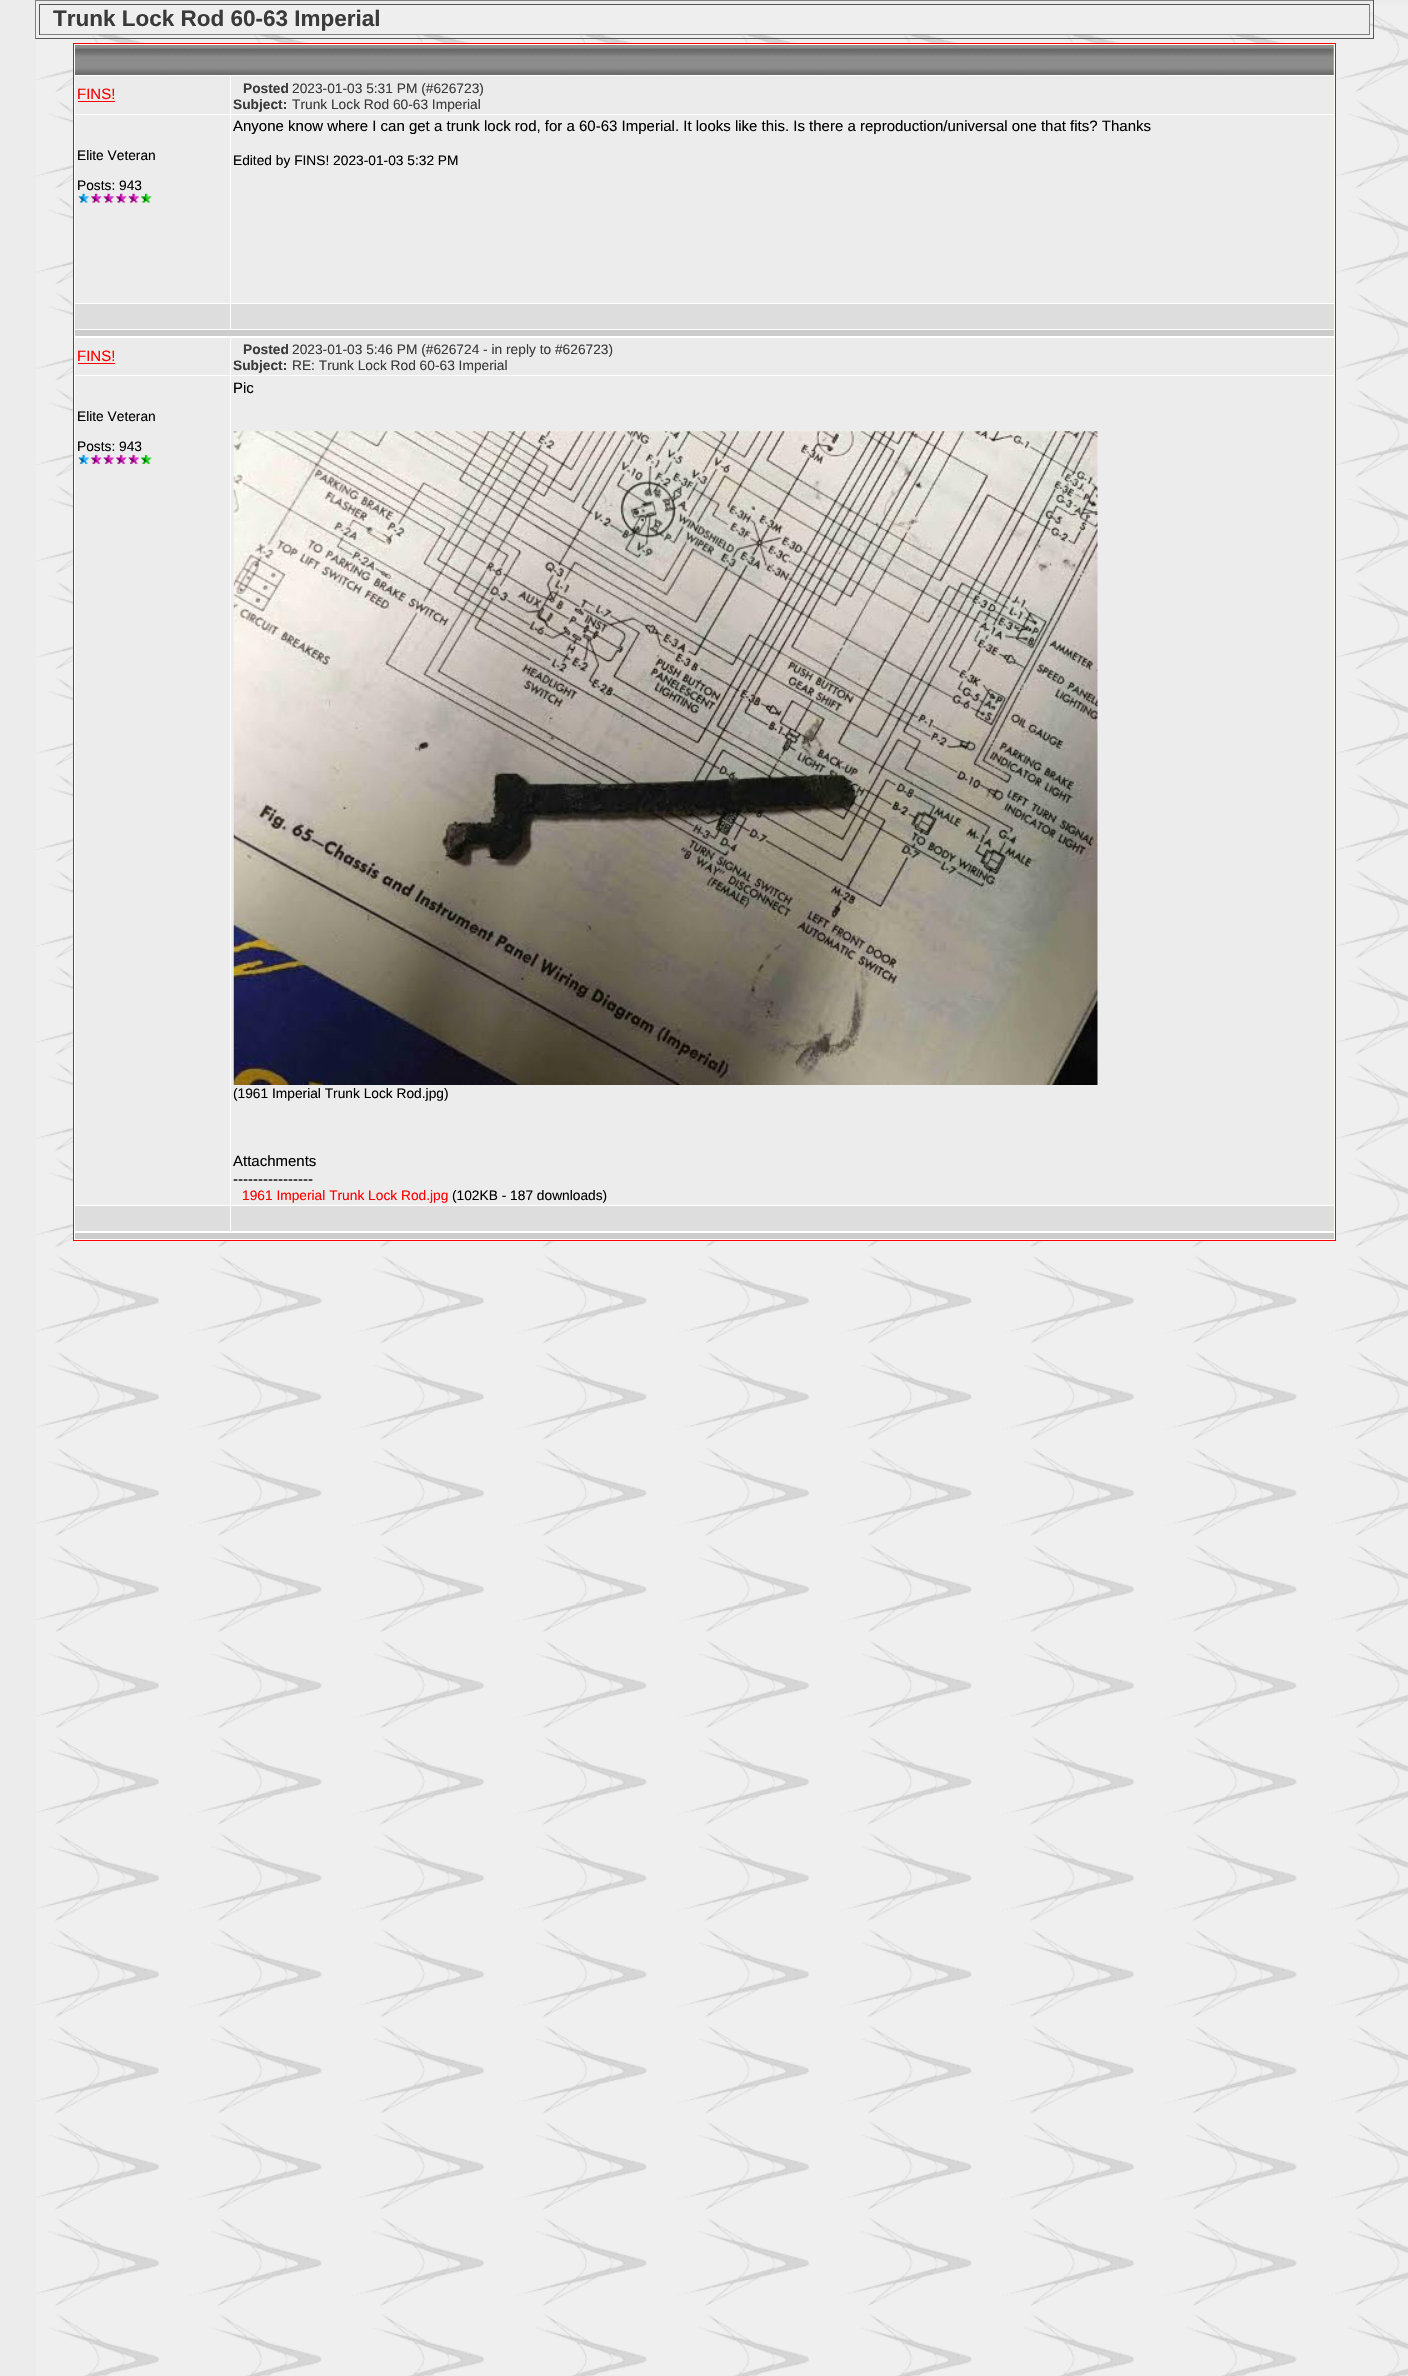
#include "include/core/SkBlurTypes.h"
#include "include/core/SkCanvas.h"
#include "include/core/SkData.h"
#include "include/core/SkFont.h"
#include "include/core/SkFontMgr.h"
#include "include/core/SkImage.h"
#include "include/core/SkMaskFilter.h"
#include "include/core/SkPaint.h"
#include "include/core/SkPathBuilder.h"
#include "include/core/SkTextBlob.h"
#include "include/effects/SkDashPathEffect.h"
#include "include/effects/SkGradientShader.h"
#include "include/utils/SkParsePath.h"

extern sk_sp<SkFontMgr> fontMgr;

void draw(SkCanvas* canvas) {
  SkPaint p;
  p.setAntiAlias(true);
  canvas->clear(SkColorSetRGB(236, 236, 236));
  canvas->drawImageRect(SkImages::DeferredFromEncodedData(SkData::MakeFromFileName("images/1.png")), SkRect::MakeLTRB(36, 4, 1408, 2376), SkSamplingOptions());
  p.setColor(SkColorSetRGB(128, 128, 128));
  canvas->drawRect(SkRect::MakeLTRB(35, 0, 1374, 1), p);
  p.setColor(SkColorSetRGB(85, 85, 85));
  canvas->drawRect(SkRect::MakeLTRB(1373, 0, 1374, 39), p);
  canvas->drawRect(SkRect::MakeLTRB(35, 38, 1374, 39), p);
  p.setColor(SkColorSetRGB(128, 128, 128));
  canvas->drawRect(SkRect::MakeLTRB(35, 0, 36, 39), p);
  p.setColor(SkColorSetRGB(238, 238, 238));
  canvas->drawRect(SkRect::MakeLTRB(49, 5, 1369, 34), p);
  p.setColor(SkColorSetRGB(85, 85, 85));
  canvas->drawRect(SkRect::MakeLTRB(39, 4, 1370, 5), p);
  p.setColor(SkColorSetRGB(128, 128, 128));
  canvas->drawRect(SkRect::MakeLTRB(1369, 4, 1370, 35), p);
  canvas->drawRect(SkRect::MakeLTRB(39, 34, 1370, 35), p);
  p.setColor(SkColorSetRGB(85, 85, 85));
  canvas->drawRect(SkRect::MakeLTRB(39, 4, 40, 35), p);
  p.setColor(SK_ColorWHITE);
  canvas->drawRect(SkRect::MakeLTRB(73.5f, 43.5f, 1335.5f, 1240.5f), p);
  p.setStyle(SkPaint::kStroke_Style);
  p.setStrokeWidth(1);
  p.setColor(SkColorSetRGB(255, 0, 0));
  canvas->drawRect(SkRect::MakeLTRB(73.5f, 43.5f, 1335.5f, 1240.5f), p);
  canvas->drawImageRect(SkImages::DeferredFromEncodedData(SkData::MakeFromFileName("images/2.png")), SkRect::MakeLTRB(75, 45, 1334, 75), SkSamplingOptions());
  p.setStyle(SkPaint::kFill_Style);
  p.setColor(SkColorSetRGB(235, 235, 235));
  canvas->drawRect(SkRect::MakeLTRB(75, 76, 230, 114), p);
  p.setColor(SkColorSetRGB(255, 0, 0));
  canvas->drawRect(SkRect::MakeLTRB(78, 101, 115, 102), p);
  p.setColor(SkColorSetRGB(235, 235, 235));
  canvas->drawRect(SkRect::MakeLTRB(231, 76, 1334, 114), p);
  p.setColor(SkColorSetRGB(236, 236, 236));
  canvas->drawRect(SkRect::MakeLTRB(75, 115, 230, 303), p);
  canvas->drawImageRect(SkImages::DeferredFromEncodedData(SkData::MakeFromFileName("images/3.png")), SkRect::MakeLTRB(78, 193, 89, 203), SkSamplingOptions());
  canvas->drawImageRect(SkImages::DeferredFromEncodedData(SkData::MakeFromFileName("images/4.png")), SkRect::MakeLTRB(91, 193, 102, 203), SkSamplingOptions());
  canvas->drawImageRect(SkImages::DeferredFromEncodedData(SkData::MakeFromFileName("images/5.png")), SkRect::MakeLTRB(103, 193, 114, 203), SkSamplingOptions());
  canvas->drawImageRect(SkImages::DeferredFromEncodedData(SkData::MakeFromFileName("images/4.png")), SkRect::MakeLTRB(116, 193, 127, 203), SkSamplingOptions());
  canvas->drawImageRect(SkImages::DeferredFromEncodedData(SkData::MakeFromFileName("images/5.png")), SkRect::MakeLTRB(128, 193, 139, 203), SkSamplingOptions());
  canvas->drawImageRect(SkImages::DeferredFromEncodedData(SkData::MakeFromFileName("images/6.png")), SkRect::MakeLTRB(141, 193, 152, 203), SkSamplingOptions());
  canvas->drawRect(SkRect::MakeLTRB(231, 115, 1334, 303), p);
  p.setColor(SkColorSetRGB(221, 221, 221));
  canvas->drawRect(SkRect::MakeLTRB(75, 304, 230, 329), p);
  canvas->drawRect(SkRect::MakeLTRB(231, 304, 1334, 329), p);
  p.setColor(SkColorSetRGB(204, 204, 204));
  canvas->drawRect(SkRect::MakeLTRB(75, 330, 1334, 336), p);
  p.setColor(SkColorSetRGB(235, 235, 235));
  canvas->drawRect(SkRect::MakeLTRB(75, 338, 230, 375), p);
  p.setColor(SkColorSetRGB(255, 0, 0));
  canvas->drawRect(SkRect::MakeLTRB(78, 363, 115, 364), p);
  p.setColor(SkColorSetRGB(235, 235, 235));
  canvas->drawRect(SkRect::MakeLTRB(231, 338, 1334, 375), p);
  p.setColor(SkColorSetRGB(236, 236, 236));
  canvas->drawRect(SkRect::MakeLTRB(75, 376, 230, 1205), p);
  canvas->drawImageRect(SkImages::DeferredFromEncodedData(SkData::MakeFromFileName("images/7.png")), SkRect::MakeLTRB(78, 454, 89, 464), SkSamplingOptions());
  canvas->drawImageRect(SkImages::DeferredFromEncodedData(SkData::MakeFromFileName("images/8.png")), SkRect::MakeLTRB(91, 454, 102, 464), SkSamplingOptions());
  canvas->drawImageRect(SkImages::DeferredFromEncodedData(SkData::MakeFromFileName("images/9.png")), SkRect::MakeLTRB(103, 454, 114, 464), SkSamplingOptions());
  canvas->drawImageRect(SkImages::DeferredFromEncodedData(SkData::MakeFromFileName("images/8.png")), SkRect::MakeLTRB(116, 454, 127, 464), SkSamplingOptions());
  canvas->drawImageRect(SkImages::DeferredFromEncodedData(SkData::MakeFromFileName("images/9.png")), SkRect::MakeLTRB(128, 454, 139, 464), SkSamplingOptions());
  canvas->drawImageRect(SkImages::DeferredFromEncodedData(SkData::MakeFromFileName("images/10.png")), SkRect::MakeLTRB(141, 454, 152, 464), SkSamplingOptions());
  canvas->drawRect(SkRect::MakeLTRB(231, 376, 1334, 1205), p);
  canvas->drawImageRect(SkImages::DeferredFromEncodedData(SkData::MakeFromFileName("images/11.png")), SkRect::MakeLTRB(233, 431, 1098, 1085), SkSamplingOptions());
  p.setColor(SkColorSetRGB(221, 221, 221));
  canvas->drawRect(SkRect::MakeLTRB(75, 1206, 230, 1231), p);
  canvas->drawRect(SkRect::MakeLTRB(231, 1206, 1334, 1231), p);
  p.setColor(SkColorSetRGB(204, 204, 204));
  canvas->drawRect(SkRect::MakeLTRB(75, 1233, 1334, 1239), p);
  SkFont font1(fontMgr->matchFamilyStyle("Liberation Sans", SkFontStyle::Bold()), 22.5f);
  font1.setSubpixel(true);
  p.setColor(SkColorSetRGB(58, 58, 58));
  canvas->drawString("Trunk Lock Rod 60-63 Imperial", 53, 26, font1, p);
  SkFont font2(fontMgr->matchFamilyStyle("Liberation Sans", SkFontStyle::Normal()), 15);
  font2.setSubpixel(true);
  p.setColor(SkColorSetRGB(255, 0, 0));
  canvas->drawString("FINS!", 77, 99, font2, p);
  SkFont font3(fontMgr->matchFamilyStyle("Liberation Sans", SkFontStyle::Bold()), 13.75f);
  font3.setSubpixel(true);
  p.setColor(SkColorSetRGB(58, 58, 58));
  canvas->drawString("Posted", 243, 93, font3, p);
  SkFont font4(fontMgr->matchFamilyStyle("Liberation Sans", SkFontStyle::Normal()), 13.75f);
  font4.setSubpixel(true);
  canvas->drawString("2023-01-03 5:31 PM (#626723)", 292, 93, font4, p);
  canvas->drawString("Subject:", 233, 109, font3, p);
  canvas->drawString("Trunk Lock Rod 60-63 Imperial", 292, 109, font4, p);
  p.setColor(SK_ColorBLACK);
  canvas->drawString("Elite Veteran", 77, 160, font4, p);
  canvas->drawString("Posts: 943", 77, 190, font4, p);
  canvas->drawString("Anyone know where I can get a trunk lock rod, for a 60-63 Imperial. It looks like this. Is there a reproduction/universal one that fits? Thanks", 233, 131, font2, p);
  canvas->drawString("Edited by FINS! 2023-01-03 5:32 PM", 233, 165, font4, p);
  p.setColor(SkColorSetRGB(255, 0, 0));
  canvas->drawString("FINS!", 77, 361, font2, p);
  p.setColor(SkColorSetRGB(58, 58, 58));
  canvas->drawString("Posted", 243, 354, font3, p);
  canvas->drawString("2023-01-03 5:46 PM (#626724 - in reply to #626723)", 292, 354, font4, p);
  canvas->drawString("Subject:", 233, 370, font3, p);
  canvas->drawString("RE: Trunk Lock Rod 60-63 Imperial", 292, 370, font4, p);
  p.setColor(SK_ColorBLACK);
  canvas->drawString("Elite Veteran", 77, 421, font4, p);
  canvas->drawString("Posts: 943", 77, 451, font4, p);
  canvas->drawString("Pic", 233, 393, font2, p);
  canvas->drawString("(1961 Imperial Trunk Lock Rod.jpg)", 233, 1098, font4, p);
  canvas->drawString("Attachments", 233, 1166, font2, p);
  canvas->drawString("----------------", 233, 1184, font2, p);
  p.setColor(SkColorSetRGB(255, 0, 0));
  canvas->drawString("1961 Imperial Trunk Lock Rod.jpg", 242, 1200, font4, p);
  p.setColor(SK_ColorBLACK);
  canvas->drawString("(102KB - 187 downloads)", 452, 1200, font4, p);
}
